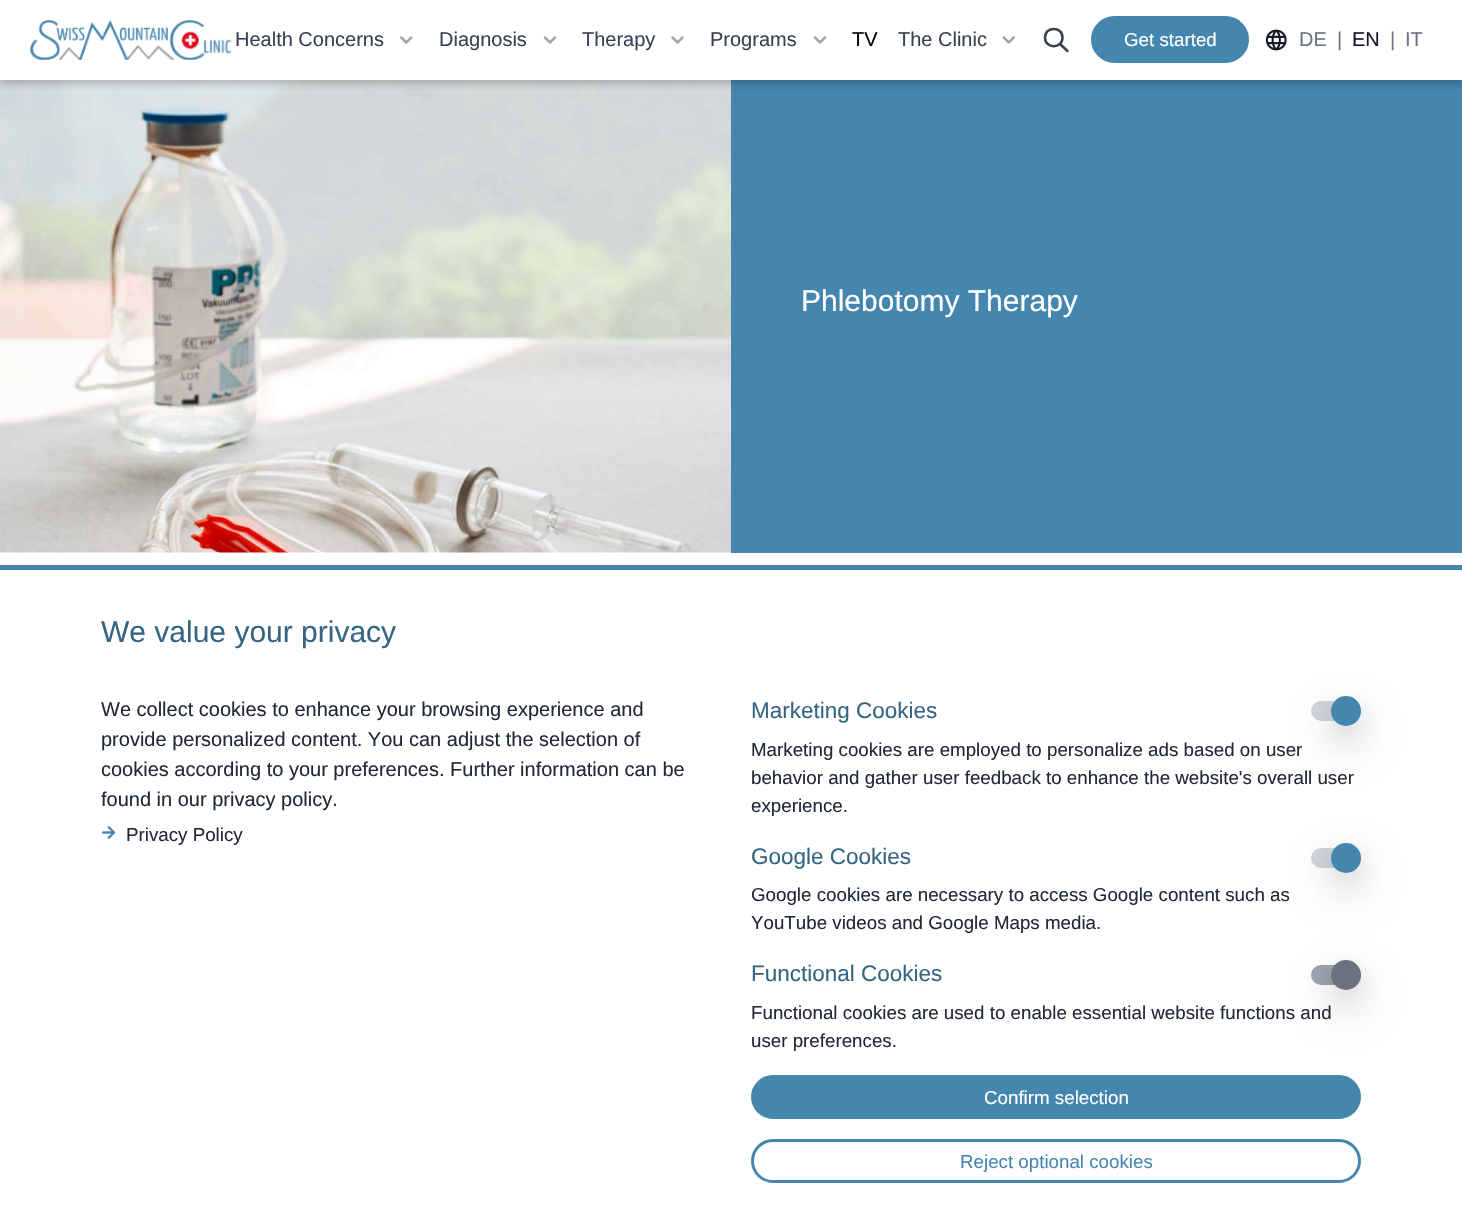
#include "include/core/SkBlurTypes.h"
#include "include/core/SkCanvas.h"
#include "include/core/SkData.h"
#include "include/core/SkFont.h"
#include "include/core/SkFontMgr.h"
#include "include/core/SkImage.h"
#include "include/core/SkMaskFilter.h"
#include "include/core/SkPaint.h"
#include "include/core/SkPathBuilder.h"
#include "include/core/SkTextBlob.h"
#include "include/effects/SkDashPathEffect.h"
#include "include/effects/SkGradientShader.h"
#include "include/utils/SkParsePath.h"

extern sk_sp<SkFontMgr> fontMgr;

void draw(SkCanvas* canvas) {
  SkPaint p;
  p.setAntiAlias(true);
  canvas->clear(SK_ColorWHITE);
  canvas->drawImageRect(SkImages::DeferredFromEncodedData(SkData::MakeFromFileName("images/8.png")), SkRect::MakeLTRB(0, 80, 731, 553), SkSamplingOptions());
  p.setColor(SkColorSetRGB(69, 134, 175));
  canvas->drawRect(SkRect::MakeLTRB(731, 80, 1462, 553), p);
  canvas->save();
  canvas->clipRect(SkRect::MakeLTRB(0, 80, 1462, 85));
  p.setColor(SkColorSetARGB(20, 0, 0, 0));
  p.setMaskFilter(SkMaskFilter::MakeBlur(kNormal_SkBlurStyle, 2.5f));
  canvas->drawRect(SkRect::MakeLTRB(0, 3, 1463, 83), p);
  p.setMaskFilter(nullptr);
  canvas->restore();
  canvas->save();
  canvas->clipRect(SkRect::MakeLTRB(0, 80, 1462, 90));
  p.setColor(SkColorSetARGB(31, 0, 0, 0));
  p.setMaskFilter(SkMaskFilter::MakeBlur(kNormal_SkBlurStyle, 5));
  canvas->drawRect(SkRect::MakeLTRB(0, 5, 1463, 85), p);
  p.setMaskFilter(nullptr);
  canvas->restore();
  canvas->drawImageRect(SkImages::DeferredFromEncodedData(SkData::MakeFromFileName("images/1.png")), SkRect::MakeLTRB(30, 20, 232, 60), SkSamplingOptions());
  canvas->drawImageRect(SkImages::DeferredFromEncodedData(SkData::MakeFromFileName("images/2.png")), SkRect::MakeLTRB(400, 36, 413, 44), SkSamplingOptions());
  canvas->drawImageRect(SkImages::DeferredFromEncodedData(SkData::MakeFromFileName("images/3.png")), SkRect::MakeLTRB(543, 36, 557, 44), SkSamplingOptions());
  canvas->drawImageRect(SkImages::DeferredFromEncodedData(SkData::MakeFromFileName("images/4.png")), SkRect::MakeLTRB(671, 36, 684, 44), SkSamplingOptions());
  canvas->drawImageRect(SkImages::DeferredFromEncodedData(SkData::MakeFromFileName("images/3.png")), SkRect::MakeLTRB(813, 36, 827, 44), SkSamplingOptions());
  canvas->drawImageRect(SkImages::DeferredFromEncodedData(SkData::MakeFromFileName("images/5.png")), SkRect::MakeLTRB(1002, 36, 1015, 44), SkSamplingOptions());
  p.setStyle(SkPaint::kStroke_Style);
  p.setStrokeWidth(2.5f);
  p.setStrokeCap(SkPaint::kRound_Cap);
  p.setStrokeJoin(SkPaint::kRound_Join);
  p.setColor(SkColorSetRGB(55, 65, 81));
  canvas->drawPath(SkPathBuilder().moveTo(1067.5f, 51).lineTo(1060, 44).moveTo(1062.5f, 37.5f).cubicTo(1062.5f, 49, 1045, 49, 1045, 37.5f).cubicTo(1045, 26, 1062.5f, 26, 1062.5f, 37.5f).close().detach(), p);
  p.setStyle(SkPaint::kFill_Style);
  p.setColor(SkColorSetRGB(69, 134, 175));
  canvas->drawRoundRect(SkRect::MakeLTRB(1092.5f, 17.5f, 1247.5f, 61.5f), 22, 22, p);
  p.setStyle(SkPaint::kStroke_Style);
  p.setStrokeWidth(3);
  p.setStrokeCap(SkPaint::kButt_Cap);
  p.setStrokeJoin(SkPaint::kMiter_Join);
  canvas->drawRoundRect(SkRect::MakeLTRB(1092.5f, 17.5f, 1247.5f, 61.5f), 22, 22, p);
  canvas->drawImageRect(SkImages::DeferredFromEncodedData(SkData::MakeFromFileName("images/6.png")), SkRect::MakeLTRB(1265, 29, 1287, 51), SkSamplingOptions());
  p.setStyle(SkPaint::kFill_Style);
  canvas->drawRect(SkRect::MakeLTRB(0, 565, 1462, 570), p);
  canvas->drawImageRect(SkImages::DeferredFromEncodedData(SkData::MakeFromFileName("images/7.png")), SkRect::MakeLTRB(102, 826, 116, 839), SkSamplingOptions());
  p.setColor(SkColorSetRGB(209, 213, 219));
  canvas->drawRoundRect(SkRect::MakeLTRB(1311, 701, 1361, 721), 10, 10, p);
  p.setColor(SkColorSetARGB(20, 0, 0, 0));
  p.setMaskFilter(SkMaskFilter::MakeBlur(kNormal_SkBlurStyle, 9.5f));
  canvas->drawRoundRect(SkRect::MakeLTRB(1331, 703, 1361, 733), 15, 15, p);
  p.setMaskFilter(nullptr);
  p.setColor(SkColorSetARGB(51, 0, 0, 0));
  p.setMaskFilter(SkMaskFilter::MakeBlur(kNormal_SkBlurStyle, 19));
  canvas->drawRoundRect(SkRect::MakeLTRB(1331, 715, 1361, 745), 15, 15, p);
  p.setMaskFilter(nullptr);
  p.setColor(SkColorSetRGB(69, 134, 175));
  canvas->drawCircle(1346, 711, 15, p);
  p.setColor(SkColorSetRGB(209, 213, 219));
  canvas->drawRoundRect(SkRect::MakeLTRB(1311, 848, 1361, 868), 10, 10, p);
  p.setColor(SkColorSetARGB(20, 0, 0, 0));
  p.setMaskFilter(SkMaskFilter::MakeBlur(kNormal_SkBlurStyle, 9.5f));
  canvas->drawRoundRect(SkRect::MakeLTRB(1331, 849, 1361, 879), 15, 15, p);
  p.setMaskFilter(nullptr);
  p.setColor(SkColorSetARGB(51, 0, 0, 0));
  p.setMaskFilter(SkMaskFilter::MakeBlur(kNormal_SkBlurStyle, 19));
  canvas->drawRoundRect(SkRect::MakeLTRB(1331, 861, 1361, 891), 15, 15, p);
  p.setMaskFilter(nullptr);
  p.setColor(SkColorSetRGB(69, 134, 175));
  canvas->drawCircle(1346, 858, 15, p);
  p.setColor(SkColorSetRGB(156, 163, 175));
  canvas->drawRoundRect(SkRect::MakeLTRB(1311, 965, 1361, 985), 10, 10, p);
  p.setColor(SkColorSetARGB(20, 0, 0, 0));
  p.setMaskFilter(SkMaskFilter::MakeBlur(kNormal_SkBlurStyle, 9.5f));
  canvas->drawRoundRect(SkRect::MakeLTRB(1331, 966, 1361, 996), 15, 15, p);
  p.setMaskFilter(nullptr);
  p.setColor(SkColorSetARGB(51, 0, 0, 0));
  p.setMaskFilter(SkMaskFilter::MakeBlur(kNormal_SkBlurStyle, 19));
  canvas->drawRoundRect(SkRect::MakeLTRB(1331, 979, 1361, 1009), 15, 15, p);
  p.setMaskFilter(nullptr);
  p.setColor(SkColorSetRGB(107, 114, 128));
  canvas->drawCircle(1346, 975, 15, p);
  p.setColor(SkColorSetRGB(69, 134, 175));
  canvas->drawRoundRect(SkRect::MakeLTRB(752.5f, 1076.5f, 1359.5f, 1117.5f), 20.5f, 20.5f, p);
  p.setStyle(SkPaint::kStroke_Style);
  canvas->drawRoundRect(SkRect::MakeLTRB(752.5f, 1076.5f, 1359.5f, 1117.5f), 20.5f, 20.5f, p);
  canvas->drawRoundRect(SkRect::MakeLTRB(752.5f, 1140.5f, 1359.5f, 1181.5f), 20.5f, 20.5f, p);
  SkFont font1(fontMgr->matchFamilyStyle("Liberation Sans", SkFontStyle::Normal()), 20);
  font1.setSubpixel(true);
  p.setStyle(SkPaint::kFill_Style);
  p.setColor(SkColorSetRGB(55, 65, 81));
  canvas->drawString("Health Concerns", 235, 46, font1, p);
  canvas->drawString("Diagnosis", 439, 46, font1, p);
  canvas->drawString("Therapy", 582, 46, font1, p);
  canvas->drawString("Programs", 710, 46, font1, p);
  p.setColor(SK_ColorBLACK);
  canvas->drawString("TV", 852, 46, font1, p);
  p.setColor(SkColorSetRGB(55, 65, 81));
  canvas->drawString("The Clinic", 898, 46, font1, p);
  SkFont font2(fontMgr->matchFamilyStyle("Liberation Sans", SkFontStyle::Normal()), 18.75f);
  font2.setSubpixel(true);
  p.setColor(SK_ColorWHITE);
  canvas->drawString("Get started", 1124, 46, font2, p);
  p.setColor(SkColorSetRGB(107, 114, 128));
  canvas->drawString("DE", 1299, 46, font1, p);
  canvas->drawString("|", 1337, 46, font1, p);
  p.setColor(SkColorSetRGB(17, 24, 39));
  canvas->drawString("EN", 1352, 46, font1, p);
  p.setColor(SkColorSetRGB(107, 114, 128));
  canvas->drawString("|", 1390, 46, font1, p);
  canvas->drawString("IT", 1405, 46, font1, p);
  SkFont font3(fontMgr->matchFamilyStyle("Liberation Sans", SkFontStyle::Normal()), 30);
  font3.setSubpixel(true);
  p.setColor(SkColorSetRGB(52, 101, 131));
  canvas->drawString("We value your privacy", 101, 642, font3, p);
  p.setColor(SkColorSetRGB(31, 41, 55));
  canvas->drawString("We collect cookies to enhance your browsing experience and", 101, 716, font1, p);
  canvas->drawString("provide personalized content. You can adjust the selection of", 101, 746, font1, p);
  canvas->drawString("cookies according to your preferences. Further information can be", 101, 776, font1, p);
  canvas->drawString("found in our privacy policy.", 101, 806, font1, p);
  canvas->drawString("Privacy Policy", 126, 841, font2, p);
  SkFont font4(fontMgr->matchFamilyStyle("Liberation Sans", SkFontStyle::Normal()), 22.5f);
  font4.setSubpixel(true);
  p.setColor(SkColorSetRGB(52, 101, 131));
  canvas->drawString("Marketing Cookies", 751, 718, font4, p);
  p.setColor(SkColorSetRGB(31, 41, 55));
  canvas->drawString("Marketing cookies are employed to personalize ads based on user", 751, 756, font2, p);
  canvas->drawString("behavior and gather user feedback to enhance the website's overall user", 751, 784, font2, p);
  canvas->drawString("experience.", 751, 812, font2, p);
  p.setColor(SkColorSetRGB(52, 101, 131));
  canvas->drawString("Google Cookies", 751, 864, font4, p);
  p.setColor(SkColorSetRGB(31, 41, 55));
  canvas->drawString("Google cookies are necessary to access Google content such as", 751, 901, font2, p);
  canvas->drawString("YouTube videos and Google Maps media.", 751, 929, font2, p);
  p.setColor(SkColorSetRGB(52, 101, 131));
  canvas->drawString("Functional Cookies", 751, 981, font4, p);
  p.setColor(SkColorSetRGB(31, 41, 55));
  canvas->drawString("Functional cookies are used to enable essential website functions and", 751, 1019, font2, p);
  canvas->drawString("user preferences.", 751, 1047, font2, p);
  p.setColor(SK_ColorWHITE);
  canvas->drawString("Confirm selection", 984, 1104, font2, p);
  p.setColor(SkColorSetRGB(69, 134, 175));
  canvas->drawString("Reject optional cookies", 960, 1168, font2, p);
  p.setColor(SK_ColorWHITE);
  canvas->drawString("Phlebotomy Therapy", 801, 311, font3, p);
}
